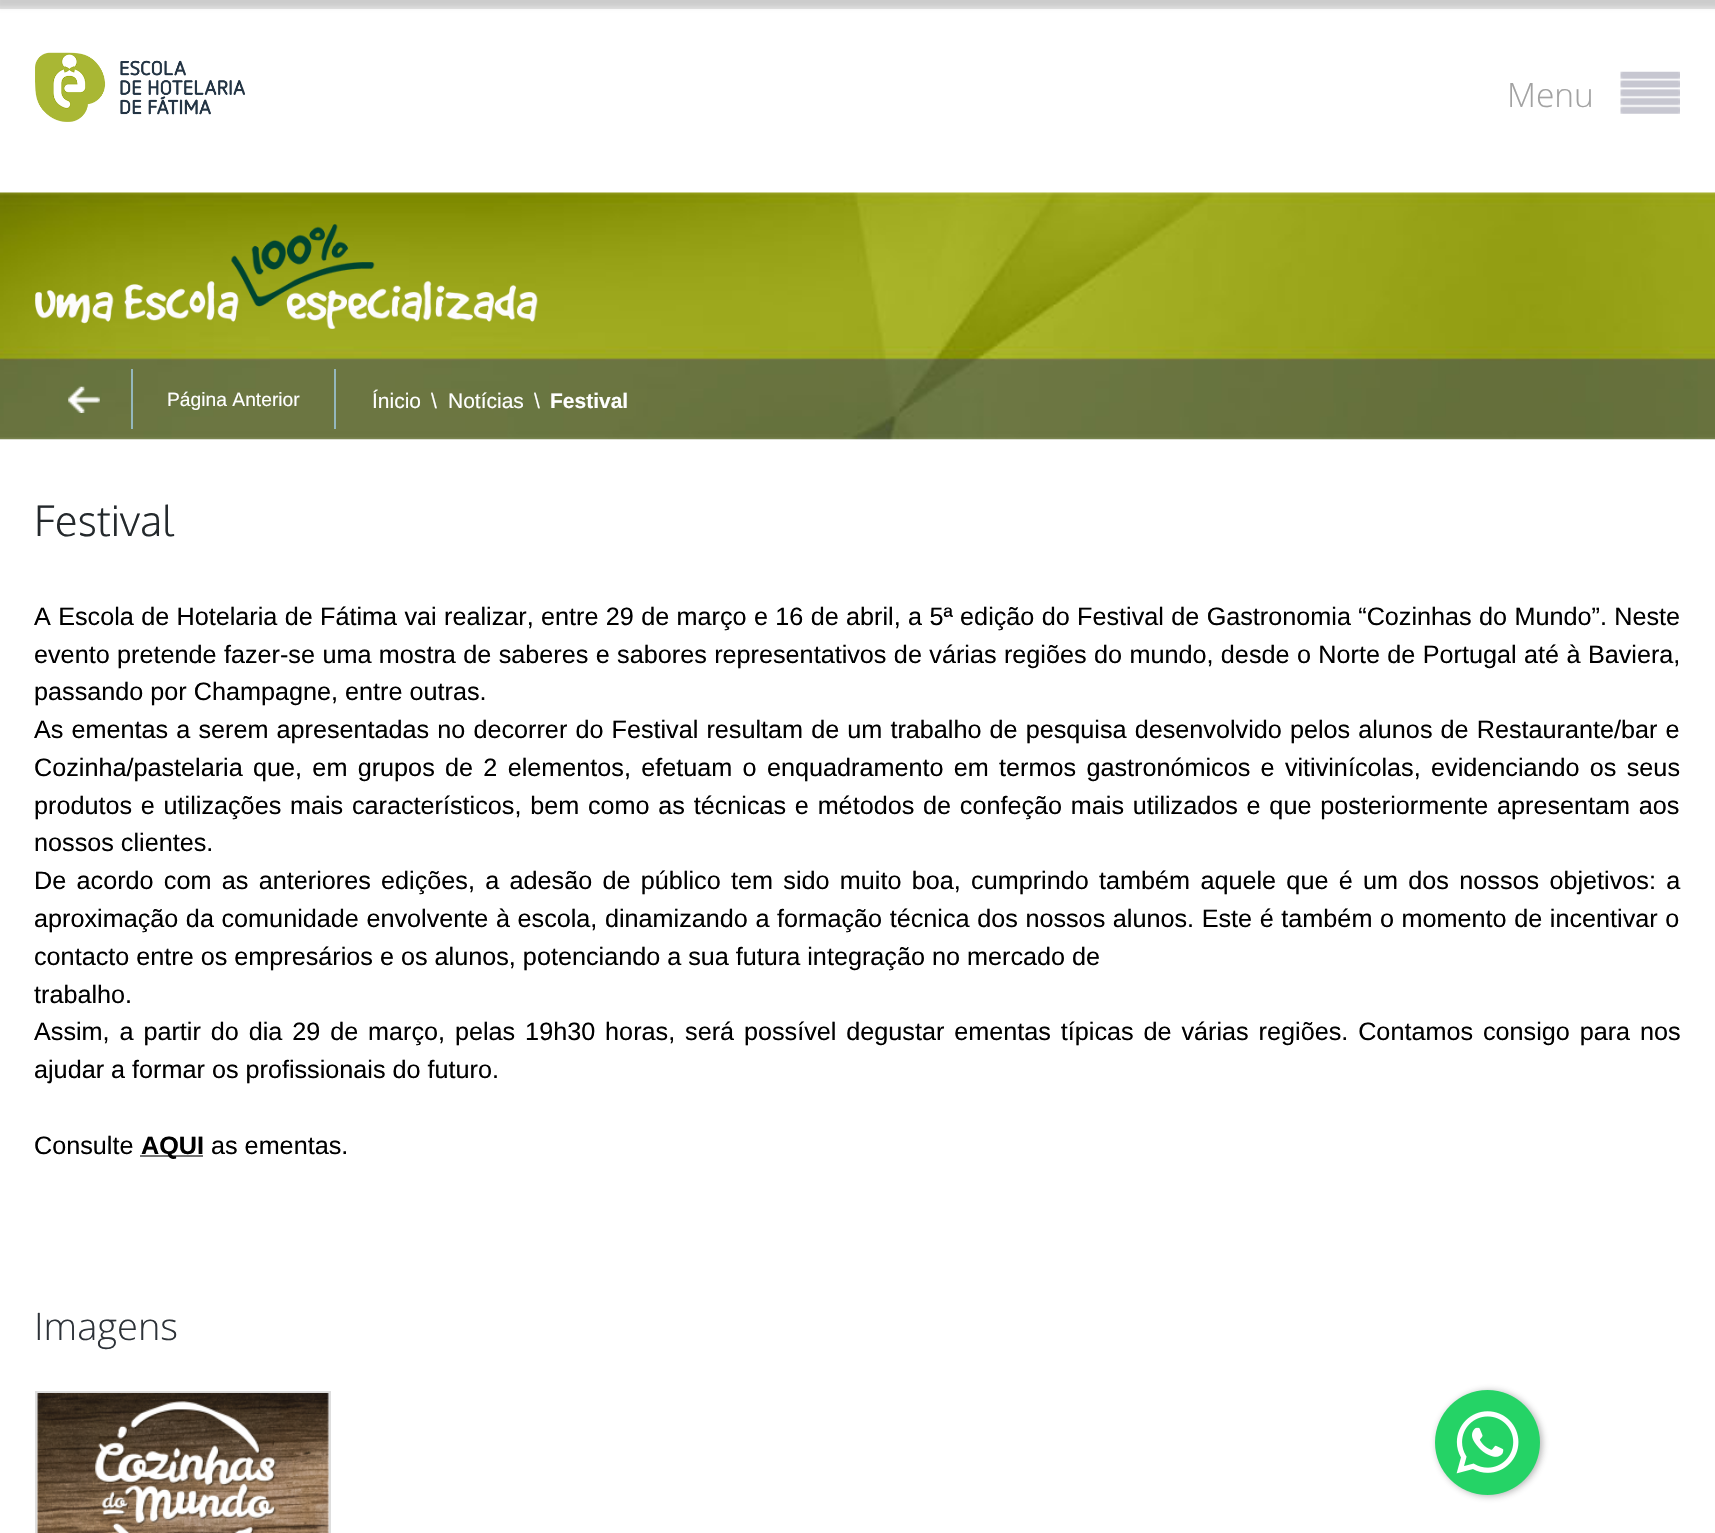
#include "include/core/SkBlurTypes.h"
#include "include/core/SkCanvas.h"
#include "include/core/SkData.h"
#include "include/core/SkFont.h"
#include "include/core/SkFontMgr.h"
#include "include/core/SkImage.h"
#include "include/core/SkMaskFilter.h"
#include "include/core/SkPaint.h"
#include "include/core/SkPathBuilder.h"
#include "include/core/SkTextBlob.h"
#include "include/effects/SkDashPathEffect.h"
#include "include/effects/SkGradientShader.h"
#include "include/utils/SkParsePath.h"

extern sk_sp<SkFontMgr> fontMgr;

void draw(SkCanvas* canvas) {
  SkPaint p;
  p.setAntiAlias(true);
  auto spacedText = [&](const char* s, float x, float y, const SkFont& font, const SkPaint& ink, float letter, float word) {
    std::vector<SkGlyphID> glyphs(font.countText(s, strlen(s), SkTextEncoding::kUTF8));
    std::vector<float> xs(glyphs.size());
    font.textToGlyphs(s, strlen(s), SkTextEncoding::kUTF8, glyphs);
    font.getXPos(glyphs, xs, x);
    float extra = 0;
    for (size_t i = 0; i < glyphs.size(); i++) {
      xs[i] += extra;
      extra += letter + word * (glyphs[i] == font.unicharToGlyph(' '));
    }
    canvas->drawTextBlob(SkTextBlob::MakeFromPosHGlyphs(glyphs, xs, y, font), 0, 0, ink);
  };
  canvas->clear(SK_ColorWHITE);
  p.setColor(SkColorSetRGB(227, 227, 227));
  canvas->drawRect(SkRect::MakeLTRB(0, 0, 1715, 9), p);
  p.setColor(SkColorSetARGB(26, 0, 0, 0));
  p.setMaskFilter(SkMaskFilter::MakeBlur(kNormal_SkBlurStyle, 2.5f));
  canvas->drawRect(SkRect::MakeLTRB(-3, -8, 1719, 7), p);
  p.setMaskFilter(nullptr);
  canvas->drawImageRect(SkImages::DeferredFromEncodedData(SkData::MakeFromFileName("images/1.png")), SkRect::MakeLTRB(35, 52, 245, 122), SkSamplingOptions());
  canvas->drawImageRect(SkImages::DeferredFromEncodedData(SkData::MakeFromFileName("images/2.png")), SkRect::MakeLTRB(1620, 71, 1680, 114), SkSamplingOptions());
  canvas->drawImageRect(SkImages::DeferredFromEncodedData(SkData::MakeFromFileName("images/3.png")), SkRect::MakeLTRB(0, 192, 1715, 440), SkSamplingOptions());
  canvas->drawImageRect(SkImages::DeferredFromEncodedData(SkData::MakeFromFileName("images/4.png")), SkRect::MakeLTRB(35, 224, 538, 329), SkSamplingOptions());
  p.setColor(SkColorSetRGB(148, 183, 189));
  canvas->drawRect(SkRect::MakeLTRB(334, 369, 336, 429), p);
  canvas->drawRect(SkRect::MakeLTRB(131, 369, 133, 429), p);
  canvas->drawImageRect(SkImages::DeferredFromEncodedData(SkData::MakeFromFileName("images/5.png")), SkRect::MakeLTRB(68, 386, 100, 413), SkSamplingOptions());
  p.setColor(SkColorSetRGB(114, 114, 114));
  canvas->drawRect(SkRect::MakeLTRB(140, 1155, 203, 1157), p);
  p.setColor(SkColorSetRGB(222, 222, 222));
  canvas->drawRect(SkRect::MakeLTRB(35, 1391, 331, 1393), p);
  canvas->drawRect(SkRect::MakeLTRB(329, 1391, 331, 1533), p);
  canvas->drawRect(SkRect::MakeLTRB(35, 1391, 37, 1533), p);
  canvas->drawImageRect(SkImages::DeferredFromEncodedData(SkData::MakeFromFileName("images/6.png")), SkRect::MakeLTRB(36, 1393, 329, 1533), SkSamplingOptions());
  p.setColor(SkColorSetARGB(102, 60, 60, 60));
  p.setMaskFilter(SkMaskFilter::MakeBlur(kNormal_SkBlurStyle, 3.5f));
  canvas->drawRoundRect(SkRect::MakeLTRB(1437, 1391, 1542, 1496), 52.5f, 52.5f, p);
  p.setMaskFilter(nullptr);
  canvas->drawImageRect(SkImages::DeferredFromEncodedData(SkData::MakeFromFileName("images/7.png")), SkRect::MakeLTRB(1435, 1390, 1540, 1495), SkSamplingOptions());
  SkFont font1(fontMgr->matchFamilyStyle("Open Sans", SkFontStyle(300, SkFontStyle::kNormal_Width, SkFontStyle::kUpright_Slant)), 33.5f);
  font1.setSubpixel(true);
  p.setColor(SkColorSetRGB(162, 162, 162));
  canvas->drawString("Menu", 1507, 107, font1, p);
  SkFont font2(fontMgr->matchFamilyStyle("Liberation Sans", SkFontStyle::Normal()), 19.25f);
  font2.setSubpixel(true);
  p.setColor(SK_ColorWHITE);
  canvas->drawString("Página Anterior", 167, 406, font2, p);
  SkFont font3(fontMgr->matchFamilyStyle("Liberation Sans", SkFontStyle::Normal()), 21);
  font3.setSubpixel(true);
  canvas->drawString("Ínicio", 372, 408, font3, p);
  canvas->drawString("\\", 431, 408, font3, p);
  canvas->drawString("Notícias", 448, 408, font3, p);
  canvas->drawString("\\", 534, 408, font3, p);
  SkFont font4(fontMgr->matchFamilyStyle("Liberation Sans", SkFontStyle::Bold()), 21);
  font4.setSubpixel(true);
  canvas->drawString("Festival", 550, 408, font4, p);
  SkFont font5(fontMgr->matchFamilyStyle("Oxygen", SkFontStyle(300, SkFontStyle::kNormal_Width, SkFontStyle::kUpright_Slant)), 42);
  font5.setSubpixel(true);
  p.setColor(SkColorSetRGB(36, 41, 44));
  canvas->drawString("Festival", 34, 536, font5, p);
  SkFont font6(fontMgr->matchFamilyStyle("Liberation Sans", SkFontStyle::Normal()), 25.2f);
  font6.setSubpixel(true);
  p.setColor(SK_ColorBLACK);
  spacedText("A Escola de Hotelaria de Fátima vai realizar, entre 29 de março e 16 de abril, a 5ª edição do Festival de Gastronomia “Cozinhas do Mundo”. Neste", 34, 625, font6, p, 0, 0.35f);
  spacedText("evento pretende fazer-se uma mostra de saberes e sabores representativos de várias regiões do mundo, desde o Norte de Portugal até à Baviera,", 34, 663, font6, p, 0, 0.4f);
  canvas->drawString("passando por Champagne, entre outras.", 34, 700, font6, p);
  spacedText("As ementas a serem apresentadas no decorrer do Festival resultam de um trabalho de pesquisa desenvolvido pelos alunos de Restaurante/bar e", 34, 738, font6, p, 0, 1.1f);
  spacedText("Cozinha/pastelaria que, em grupos de 2 elementos, efetuam o enquadramento em termos gastronómicos e vitivinícolas, evidenciando os seus", 34, 776, font6, p, 0, 3.3f);
  spacedText("produtos e utilizações mais característicos, bem como as técnicas e métodos de confeção mais utilizados e que posteriormente apresentam aos", 34, 814, font6, p, 0, 1.75f);
  canvas->drawString("nossos clientes.", 34, 851, font6, p);
  spacedText("De acordo com as anteriores edições, a adesão de público tem sido muito boa, cumprindo também aquele que é um dos nossos objetivos: a", 34, 889, font6, p, 0, 3.3f);
  spacedText("aproximação da comunidade envolvente à escola, dinamizando a formação técnica dos nossos alunos. Este é também o momento de incentivar o", 34, 927, font6, p, 0, 0.6f);
  canvas->drawString("contacto entre os empresários e os alunos, potenciando a sua futura integração no mercado de", 34, 965, font6, p);
  canvas->drawString("trabalho.", 34, 1003, font6, p);
  spacedText("Assim, a partir do dia 29 de março, pelas 19h30 horas, será possível degustar ementas típicas de várias regiões. Contamos consigo para nos", 34, 1040, font6, p, 0, 2.9f);
  canvas->drawString("ajudar a formar os profissionais do futuro.", 34, 1078, font6, p);
  canvas->drawString("Consulte", 34, 1154, font6, p);
  SkFont font7(fontMgr->matchFamilyStyle("Liberation Sans", SkFontStyle::Bold()), 25.2f);
  font7.setSubpixel(true);
  canvas->drawString("AQUI", 141, 1154, font7, p);
  canvas->drawString("as ementas.", 211, 1154, font6, p);
  SkFont font8(fontMgr->matchFamilyStyle("Open Sans", SkFontStyle(300, SkFontStyle::kNormal_Width, SkFontStyle::kUpright_Slant)), 38);
  font8.setSubpixel(true);
  p.setColor(SkColorSetRGB(45, 50, 56));
  canvas->drawString("Imagens", 34, 1340, font8, p);
}
